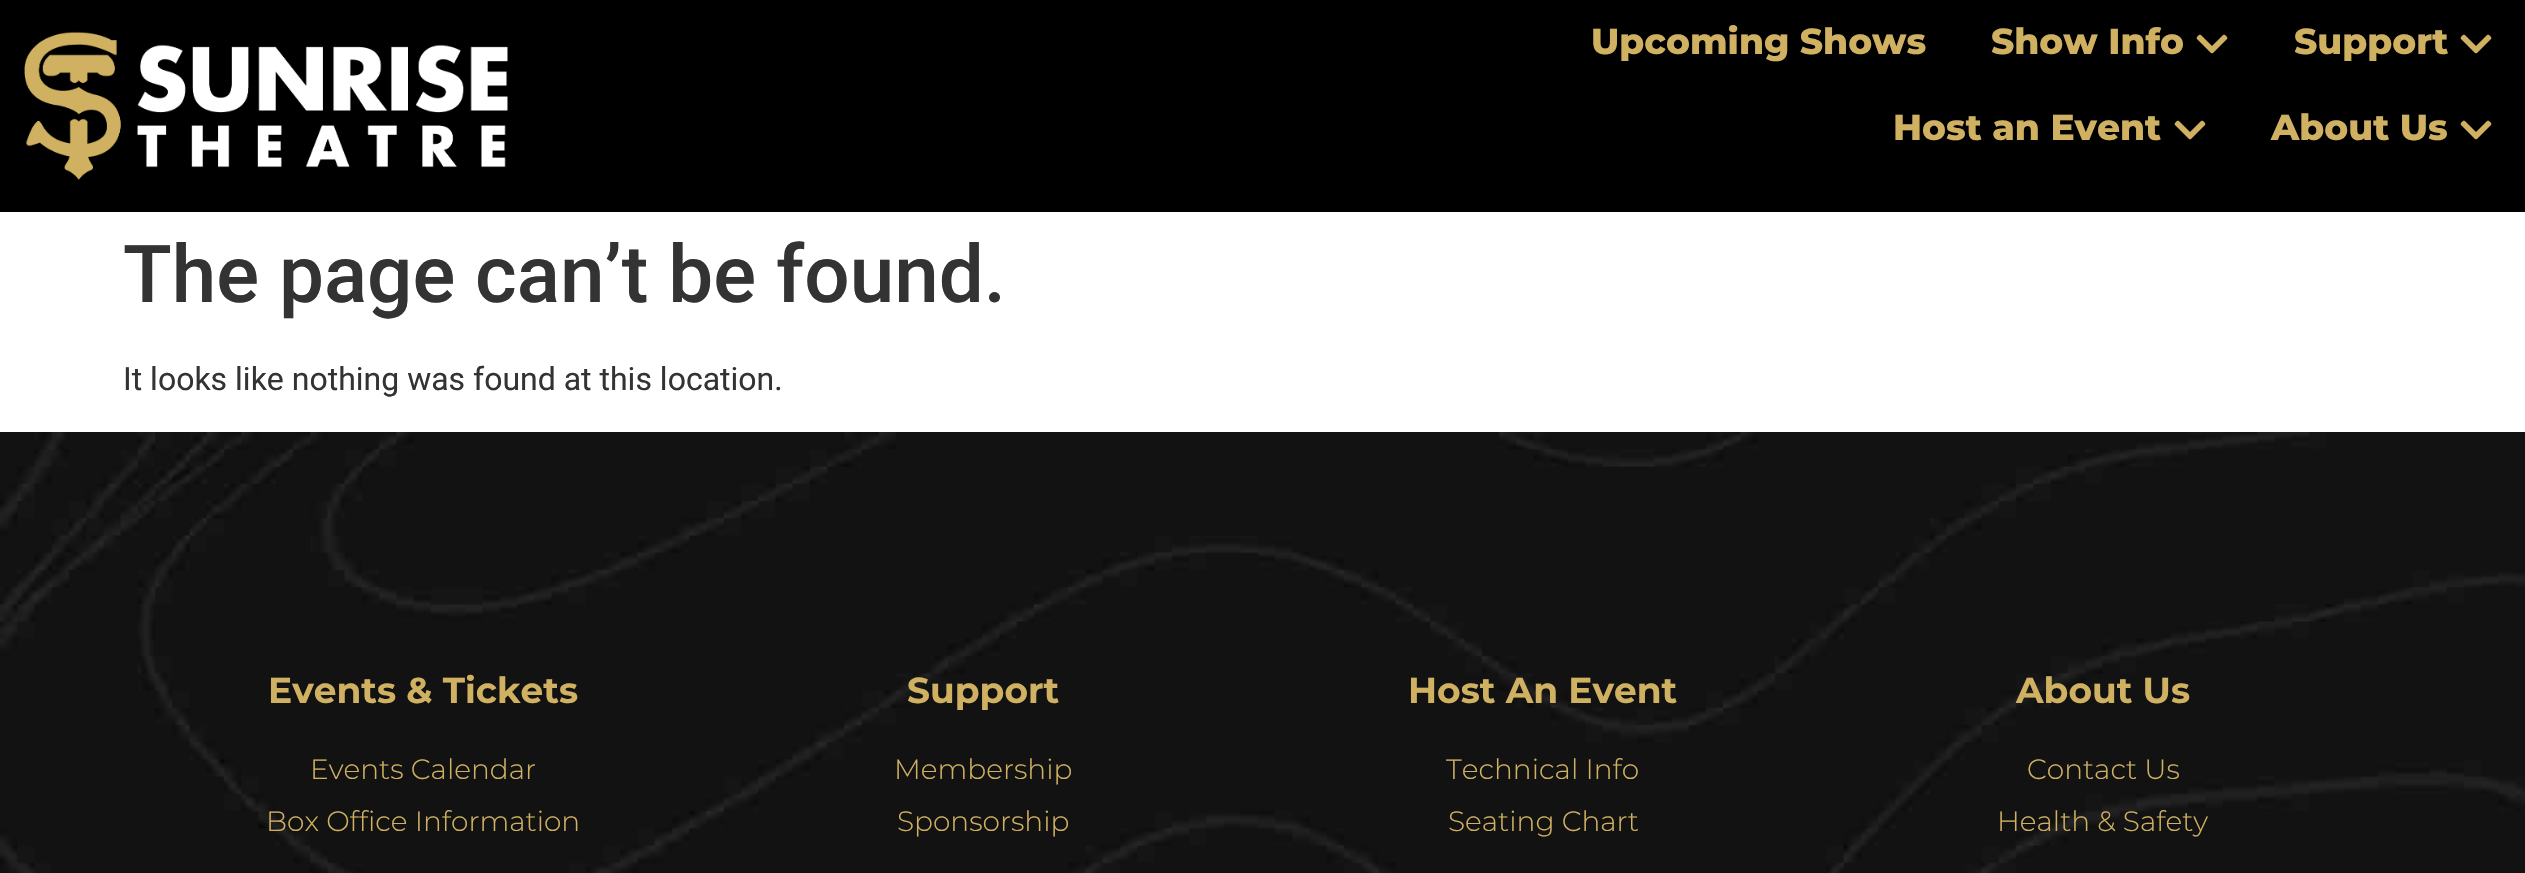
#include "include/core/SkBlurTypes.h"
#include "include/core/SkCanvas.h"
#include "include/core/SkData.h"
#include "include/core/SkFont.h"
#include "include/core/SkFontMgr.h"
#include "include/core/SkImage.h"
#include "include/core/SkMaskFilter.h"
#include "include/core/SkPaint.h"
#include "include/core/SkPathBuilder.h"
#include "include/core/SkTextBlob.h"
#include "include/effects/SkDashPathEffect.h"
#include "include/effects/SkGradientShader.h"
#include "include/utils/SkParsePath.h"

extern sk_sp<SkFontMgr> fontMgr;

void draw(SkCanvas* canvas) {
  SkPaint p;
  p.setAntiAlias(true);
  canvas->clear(SK_ColorWHITE);
  p.setColor(SK_ColorBLACK);
  canvas->drawRect(SkRect::MakeLTRB(0, 0, 2525, 212), p);
  canvas->drawImageRect(SkImages::DeferredFromEncodedData(SkData::MakeFromFileName("images/1.png")), SkRect::MakeLTRB(24, 31, 508, 180), SkSamplingOptions());
  canvas->drawImageRect(SkImages::DeferredFromEncodedData(SkData::MakeFromFileName("images/2.png")), SkRect::MakeLTRB(2196, 34, 2228, 54), SkSamplingOptions());
  canvas->drawImageRect(SkImages::DeferredFromEncodedData(SkData::MakeFromFileName("images/2.png")), SkRect::MakeLTRB(2460, 34, 2492, 54), SkSamplingOptions());
  canvas->drawImageRect(SkImages::DeferredFromEncodedData(SkData::MakeFromFileName("images/2.png")), SkRect::MakeLTRB(2174, 120, 2206, 140), SkSamplingOptions());
  canvas->drawImageRect(SkImages::DeferredFromEncodedData(SkData::MakeFromFileName("images/2.png")), SkRect::MakeLTRB(2460, 120, 2492, 140), SkSamplingOptions());
  canvas->drawImageRect(SkImages::DeferredFromEncodedData(SkData::MakeFromFileName("images/3.png")), SkRect::MakeLTRB(0, 432, 2525, 873), SkSamplingOptions());
  SkFont font1(fontMgr->matchFamilyStyle("Montserrat", SkFontStyle(800, SkFontStyle::kNormal_Width, SkFontStyle::kUpright_Slant)), 36);
  font1.setSubpixel(true);
  p.setColor(SkColorSetRGB(208, 177, 97));
  canvas->drawString("Upcoming Shows", 1591, 54, font1, p);
  canvas->drawString("Show Info", 1991, 54, font1, p);
  canvas->drawString("Support", 2294, 54, font1, p);
  canvas->drawString("Host an Event", 1893, 140, font1, p);
  canvas->drawString("About Us", 2271, 140, font1, p);
  SkFont font2(fontMgr->matchFamilyStyle("Roboto", SkFontStyle(500, SkFontStyle::kNormal_Width, SkFontStyle::kUpright_Slant)), 80);
  font2.setSubpixel(true);
  p.setColor(SkColorSetRGB(51, 51, 51));
  canvas->drawString("The page can’t be found.", 123, 302, font2, p);
  SkFont font3(fontMgr->matchFamilyStyle("Roboto", SkFontStyle::Normal()), 32);
  font3.setSubpixel(true);
  canvas->drawString("It looks like nothing was found at this location.", 123, 390, font3, p);
  SkFont font4(fontMgr->matchFamilyStyle("Montserrat", SkFontStyle::Bold()), 36);
  font4.setSubpixel(true);
  p.setColor(SkColorSetRGB(208, 177, 97));
  canvas->drawString("Events & Tickets", 268, 703, font4, p);
  SkFont font5(fontMgr->matchFamilyStyle("Montserrat", SkFontStyle(300, SkFontStyle::kNormal_Width, SkFontStyle::kUpright_Slant)), 28);
  font5.setSubpixel(true);
  canvas->drawString("Events Calendar", 310, 779, font5, p);
  canvas->drawString("Box Office Information", 266, 831, font5, p);
  canvas->drawString("Support", 907, 703, font4, p);
  canvas->drawString("Membership", 894, 779, font5, p);
  canvas->drawString("Sponsorship", 897, 831, font5, p);
  canvas->drawString("Host An Event", 1408, 703, font4, p);
  canvas->drawString("Technical Info", 1446, 779, font5, p);
  canvas->drawString("Seating Chart", 1448, 831, font5, p);
  canvas->drawString("About Us", 2016, 703, font4, p);
  canvas->drawString("Contact Us", 2027, 779, font5, p);
  canvas->drawString("Health & Safety", 1997, 831, font5, p);
}
